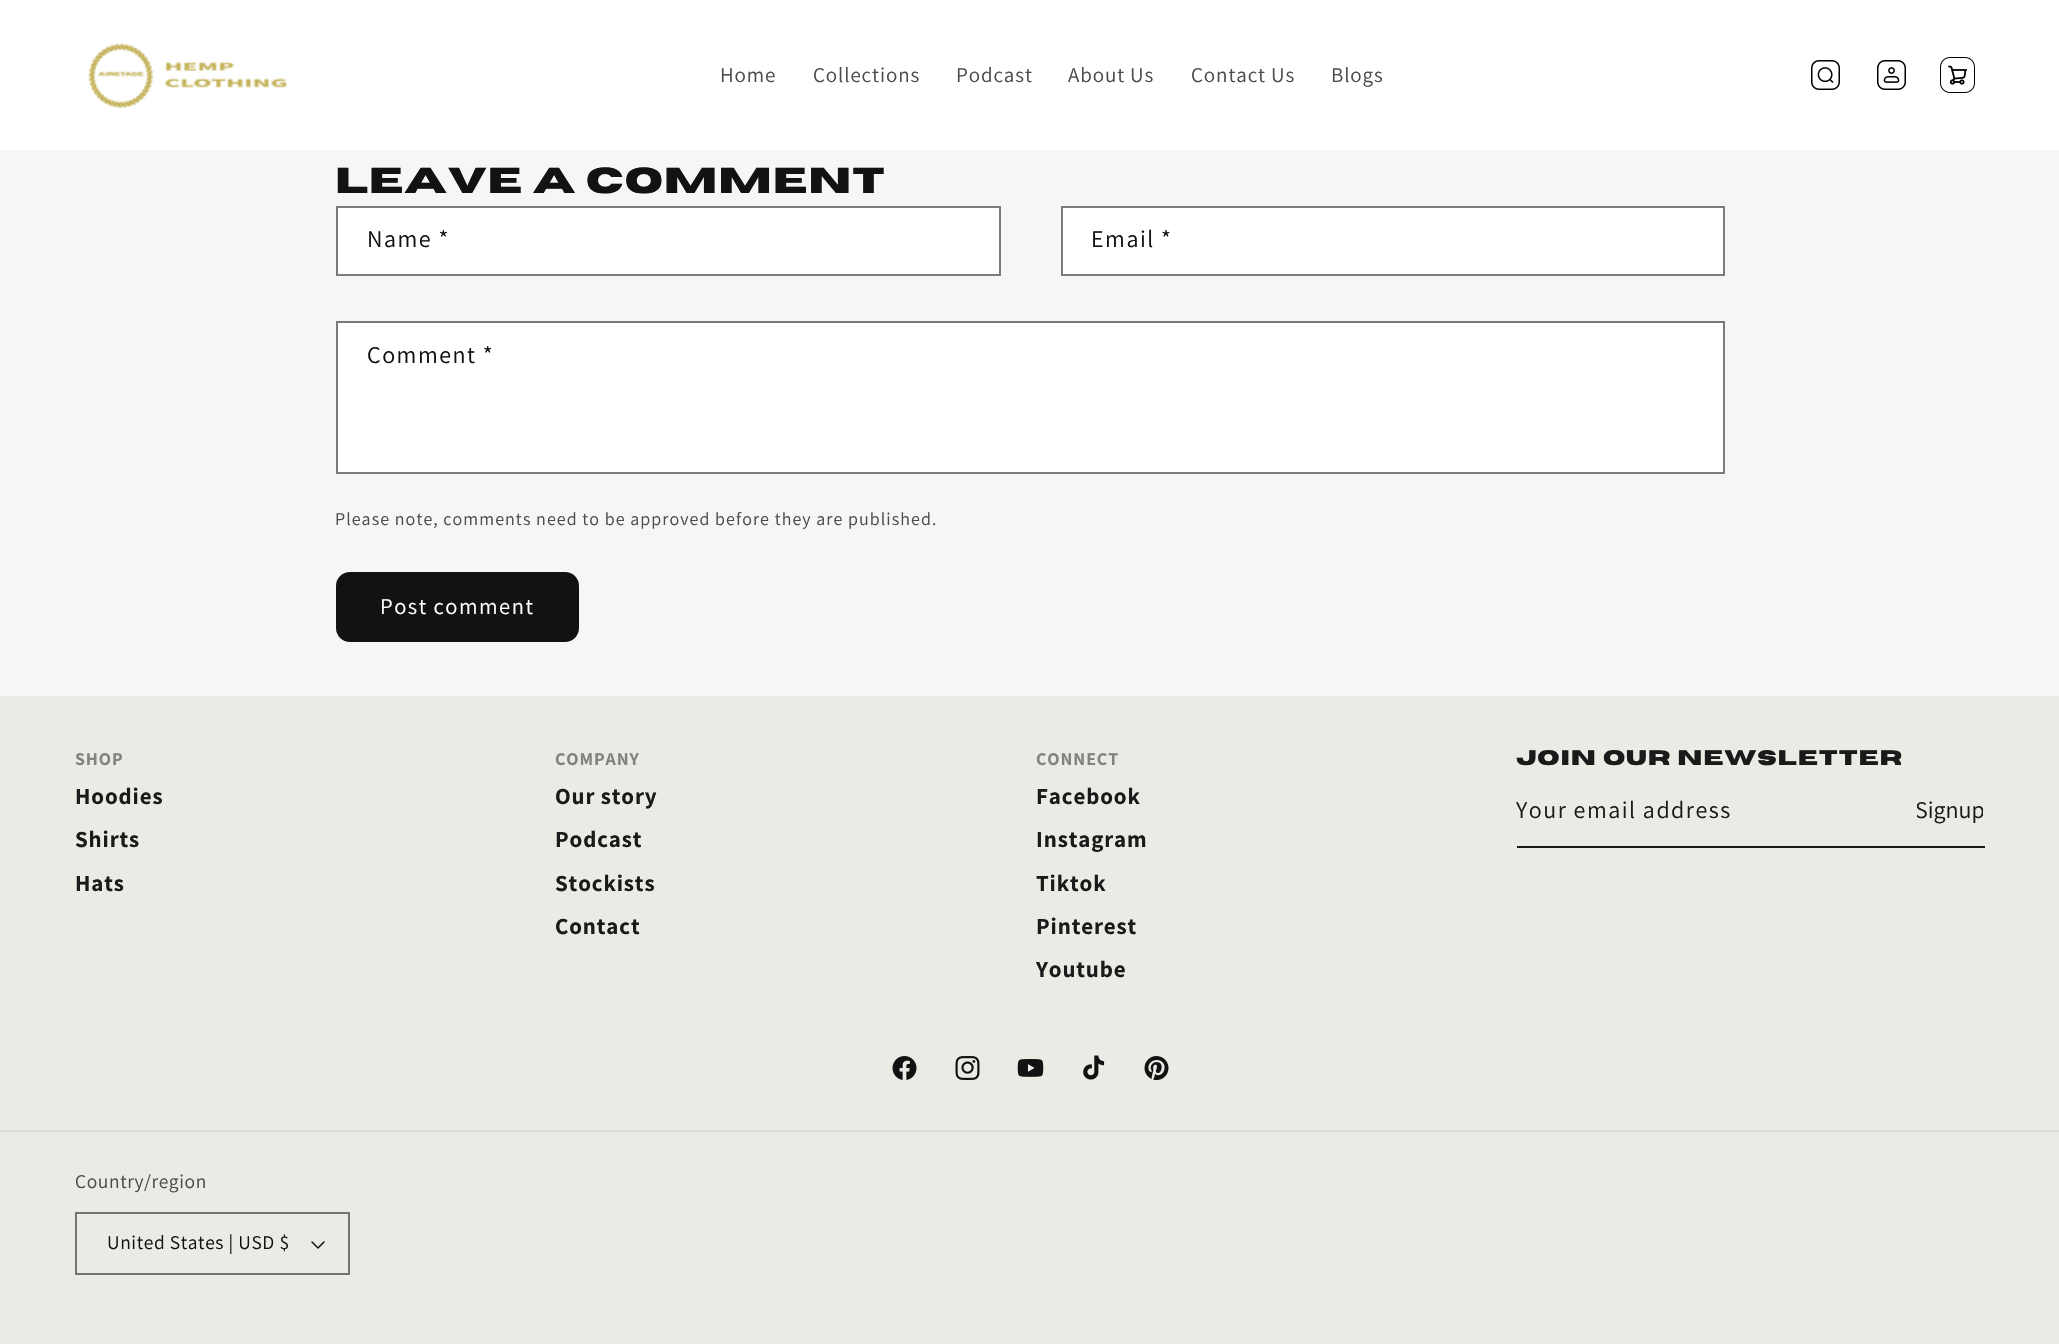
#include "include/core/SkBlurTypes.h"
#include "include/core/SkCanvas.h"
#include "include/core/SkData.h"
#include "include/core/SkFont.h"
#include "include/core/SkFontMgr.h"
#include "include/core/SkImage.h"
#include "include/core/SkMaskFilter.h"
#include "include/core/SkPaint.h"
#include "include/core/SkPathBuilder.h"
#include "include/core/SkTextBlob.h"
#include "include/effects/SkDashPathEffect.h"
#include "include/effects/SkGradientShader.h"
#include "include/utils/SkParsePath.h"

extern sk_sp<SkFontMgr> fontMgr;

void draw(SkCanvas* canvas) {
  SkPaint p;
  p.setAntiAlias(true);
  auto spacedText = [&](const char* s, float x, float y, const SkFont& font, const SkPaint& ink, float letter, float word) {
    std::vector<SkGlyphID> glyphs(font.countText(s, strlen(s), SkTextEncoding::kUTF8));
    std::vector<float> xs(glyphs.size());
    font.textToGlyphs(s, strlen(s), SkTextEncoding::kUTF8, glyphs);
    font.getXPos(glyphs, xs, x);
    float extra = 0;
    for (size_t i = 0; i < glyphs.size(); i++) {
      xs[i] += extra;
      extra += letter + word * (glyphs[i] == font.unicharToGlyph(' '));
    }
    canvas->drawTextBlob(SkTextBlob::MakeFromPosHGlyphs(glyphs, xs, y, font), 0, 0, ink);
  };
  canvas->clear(SkColorSetRGB(246, 246, 246));
  p.setColor(SK_ColorWHITE);
  canvas->drawRect(SkRect::MakeLTRB(0, 0, 2059, 150), p);
  canvas->drawImageRect(SkImages::DeferredFromEncodedData(SkData::MakeFromFileName("images/1.png")), SkRect::MakeLTRB(88, 43, 287, 109), SkSamplingOptions());
  canvas->drawImageRect(SkImages::DeferredFromEncodedData(SkData::MakeFromFileName("images/2.png")), SkRect::MakeLTRB(1811, 60, 1840, 90), SkSamplingOptions());
  canvas->drawImageRect(SkImages::DeferredFromEncodedData(SkData::MakeFromFileName("images/3.png")), SkRect::MakeLTRB(1877, 60, 1906, 90), SkSamplingOptions());
  canvas->drawImageRect(SkImages::DeferredFromEncodedData(SkData::MakeFromFileName("images/4.png")), SkRect::MakeLTRB(1940, 57, 1975, 93), SkSamplingOptions());
  canvas->drawRect(SkRect::MakeLTRB(338, 207, 999, 275), p);
  p.setStyle(SkPaint::kStroke_Style);
  p.setStrokeWidth(2);
  p.setColor(SkColorSetARGB(140, 18, 18, 18));
  canvas->drawRect(SkRect::MakeLTRB(337, 207, 1000, 275), p);
  p.setStyle(SkPaint::kFill_Style);
  p.setColor(SK_ColorWHITE);
  canvas->drawRect(SkRect::MakeLTRB(1062, 207, 1724, 275), p);
  p.setStyle(SkPaint::kStroke_Style);
  p.setColor(SkColorSetARGB(140, 18, 18, 18));
  canvas->drawRect(SkRect::MakeLTRB(1062, 207, 1724, 275), p);
  p.setStyle(SkPaint::kFill_Style);
  p.setColor(SK_ColorWHITE);
  canvas->drawRect(SkRect::MakeLTRB(338, 323, 1724, 473), p);
  p.setStyle(SkPaint::kStroke_Style);
  p.setColor(SkColorSetARGB(140, 18, 18, 18));
  canvas->drawRect(SkRect::MakeLTRB(337, 322, 1724, 473), p);
  p.setStyle(SkPaint::kFill_Style);
  p.setColor(SkColorSetRGB(18, 18, 18));
  canvas->drawRoundRect(SkRect::MakeLTRB(336, 572, 579, 642), 14, 14, p);
  p.setColor(SkColorSetRGB(234, 235, 229));
  canvas->drawRect(SkRect::MakeLTRB(0, 696, 2059, 1344), p);
  p.setColor(SkColorSetRGB(26, 26, 26));
  canvas->drawRect(SkRect::MakeLTRB(1517, 846, 1985, 848), p);
  canvas->drawImageRect(SkImages::DeferredFromEncodedData(SkData::MakeFromFileName("images/5.png")), SkRect::MakeLTRB(892, 1056, 917, 1080), SkSamplingOptions());
  canvas->drawImageRect(SkImages::DeferredFromEncodedData(SkData::MakeFromFileName("images/6.png")), SkRect::MakeLTRB(955, 1056, 980, 1080), SkSamplingOptions());
  canvas->drawImageRect(SkImages::DeferredFromEncodedData(SkData::MakeFromFileName("images/7.png")), SkRect::MakeLTRB(1017, 1059, 1044, 1077), SkSamplingOptions());
  canvas->drawImageRect(SkImages::DeferredFromEncodedData(SkData::MakeFromFileName("images/8.png")), SkRect::MakeLTRB(1083, 1055, 1105, 1080), SkSamplingOptions());
  canvas->drawImageRect(SkImages::DeferredFromEncodedData(SkData::MakeFromFileName("images/9.png")), SkRect::MakeLTRB(1144, 1056, 1169, 1081), SkSamplingOptions());
  p.setColor(SkColorSetRGB(217, 218, 212));
  canvas->drawRect(SkRect::MakeLTRB(0, 1130, 2059, 1132), p);
  canvas->drawImageRect(SkImages::DeferredFromEncodedData(SkData::MakeFromFileName("images/10.png")), SkRect::MakeLTRB(311, 1241, 325, 1249), SkSamplingOptions());
  p.setStyle(SkPaint::kStroke_Style);
  p.setColor(SkColorSetRGB(115, 116, 113));
  canvas->drawRect(SkRect::MakeLTRB(76, 1213, 349, 1274), p);
  SkFont font1(fontMgr->matchFamilyStyle("Assistant", SkFontStyle::Normal()), 21);
  font1.setSubpixel(true);
  p.setStyle(SkPaint::kFill_Style);
  p.setColor(SkColorSetRGB(75, 75, 75));
  spacedText("Home", 720, 82, font1, p, 0.9f, 0);
  spacedText("Collections", 813, 82, font1, p, 0.9f, 0);
  spacedText("Podcast", 956, 82, font1, p, 0.9f, 0);
  spacedText("About Us", 1068, 82, font1, p, 0.9f, 0);
  spacedText("Contact Us", 1191, 82, font1, p, 0.9f, 0);
  spacedText("Blogs", 1331, 82, font1, p, 0.9f, 0);
  SkFont font2(fontMgr->matchFamilyStyle("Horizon", SkFontStyle::Bold()), 36);
  font2.setSubpixel(true);
  p.setColor(SkColorSetRGB(18, 18, 18));
  spacedText("Leave a comment", 335, 193, font2, p, 0.9f, 0);
  SkFont font3(fontMgr->matchFamilyStyle("Assistant", SkFontStyle::Normal()), 24);
  font3.setSubpixel(true);
  spacedText("Name *", 367, 247, font3, p, 1.5f, 0);
  spacedText("Email *", 1091, 247, font3, p, 1.5f, 0);
  spacedText("Comment *", 367, 363, font3, p, 1.5f, 0);
  SkFont font4(fontMgr->matchFamilyStyle("Assistant", SkFontStyle::Normal()), 18);
  font4.setSubpixel(true);
  p.setColor(SkColorSetRGB(75, 75, 75));
  spacedText("Please note, comments need to be approved before they are published.", 335, 525, font4, p, 1.05f, 0);
  SkFont font5(fontMgr->matchFamilyStyle("Assistant", SkFontStyle::Normal()), 22.5f);
  font5.setSubpixel(true);
  p.setColor(SK_ColorWHITE);
  spacedText("Post comment", 380, 614, font5, p, 1.5f, 0);
  SkFont font6(fontMgr->matchFamilyStyle("Assistant", SkFontStyle::Bold()), 18);
  font6.setSubpixel(true);
  p.setColor(SkColorSetRGB(130, 131, 128));
  spacedText("SHOP", 75, 765, font6, p, 0.9f, 0);
  SkFont font7(fontMgr->matchFamilyStyle("Assistant", SkFontStyle::Bold()), 23);
  font7.setSubpixel(true);
  p.setColor(SkColorSetRGB(26, 26, 26));
  spacedText("Hoodies", 75, 804, font7, p, 0.9f, 0);
  spacedText("Shirts", 75, 847, font7, p, 0.9f, 0);
  spacedText("Hats", 75, 891, font7, p, 0.9f, 0);
  p.setColor(SkColorSetRGB(130, 131, 128));
  spacedText("COMPANY", 555, 765, font6, p, 0.9f, 0);
  p.setColor(SkColorSetRGB(26, 26, 26));
  spacedText("Our story", 555, 804, font7, p, 0.9f, 0);
  spacedText("Podcast", 555, 847, font7, p, 0.9f, 0);
  spacedText("Stockists", 555, 891, font7, p, 0.9f, 0);
  spacedText("Contact", 555, 934, font7, p, 0.9f, 0);
  p.setColor(SkColorSetRGB(130, 131, 128));
  spacedText("CONNECT", 1036, 765, font6, p, 0.9f, 0);
  p.setColor(SkColorSetRGB(26, 26, 26));
  spacedText("Facebook", 1036, 804, font7, p, 0.9f, 0);
  spacedText("Instagram", 1036, 847, font7, p, 0.9f, 0);
  spacedText("Tiktok", 1036, 891, font7, p, 0.9f, 0);
  spacedText("Pinterest", 1036, 934, font7, p, 0.9f, 0);
  spacedText("Youtube", 1036, 977, font7, p, 0.9f, 0);
  SkFont font8(fontMgr->matchFamilyStyle("Horizon", SkFontStyle::Bold()), 21);
  font8.setSubpixel(true);
  spacedText("JOIN OUR NEWSLETTER", 1516, 765, font8, p, 0.9f, 0);
  spacedText("Your email address", 1516, 818, font3, p, 1.5f, 0);
  canvas->save();
  canvas->clipRect(SkRect::MakeLTRB(1917, 776, 1983, 846));
  canvas->drawString("Signup", 1915, 818, font3, p);
  canvas->restore();
  SkFont font9(fontMgr->matchFamilyStyle("Assistant", SkFontStyle::Normal()), 19.5f);
  font9.setSubpixel(true);
  p.setColor(SkColorSetRGB(75, 75, 75));
  spacedText("Country/region", 75, 1188, font9, p, 0.6f, 0);
  p.setColor(SkColorSetRGB(18, 18, 18));
  spacedText("United States | USD $", 107, 1249, font9, p, 0.6f, 0);
}
